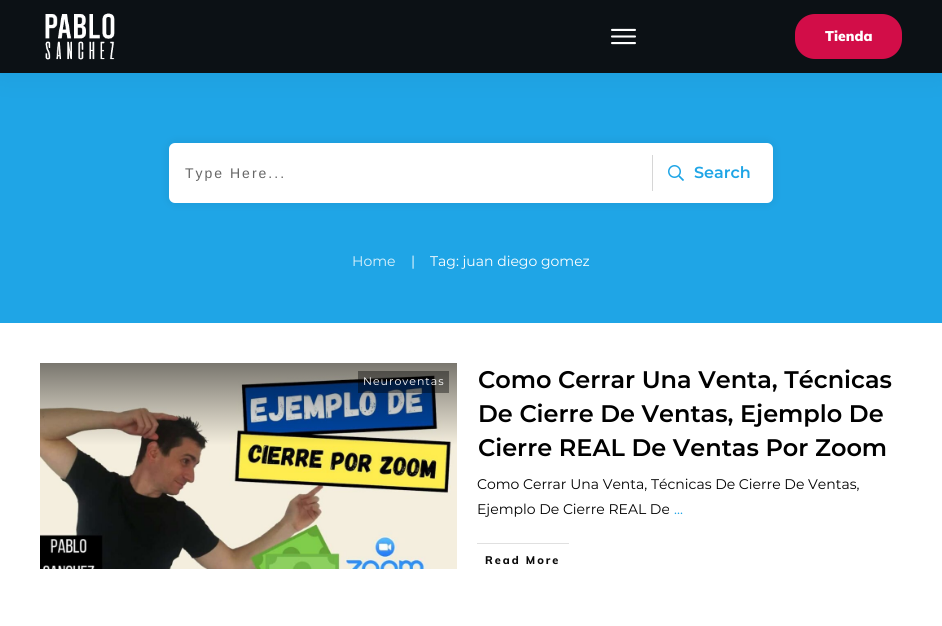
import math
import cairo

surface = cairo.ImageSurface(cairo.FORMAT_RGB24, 942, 626)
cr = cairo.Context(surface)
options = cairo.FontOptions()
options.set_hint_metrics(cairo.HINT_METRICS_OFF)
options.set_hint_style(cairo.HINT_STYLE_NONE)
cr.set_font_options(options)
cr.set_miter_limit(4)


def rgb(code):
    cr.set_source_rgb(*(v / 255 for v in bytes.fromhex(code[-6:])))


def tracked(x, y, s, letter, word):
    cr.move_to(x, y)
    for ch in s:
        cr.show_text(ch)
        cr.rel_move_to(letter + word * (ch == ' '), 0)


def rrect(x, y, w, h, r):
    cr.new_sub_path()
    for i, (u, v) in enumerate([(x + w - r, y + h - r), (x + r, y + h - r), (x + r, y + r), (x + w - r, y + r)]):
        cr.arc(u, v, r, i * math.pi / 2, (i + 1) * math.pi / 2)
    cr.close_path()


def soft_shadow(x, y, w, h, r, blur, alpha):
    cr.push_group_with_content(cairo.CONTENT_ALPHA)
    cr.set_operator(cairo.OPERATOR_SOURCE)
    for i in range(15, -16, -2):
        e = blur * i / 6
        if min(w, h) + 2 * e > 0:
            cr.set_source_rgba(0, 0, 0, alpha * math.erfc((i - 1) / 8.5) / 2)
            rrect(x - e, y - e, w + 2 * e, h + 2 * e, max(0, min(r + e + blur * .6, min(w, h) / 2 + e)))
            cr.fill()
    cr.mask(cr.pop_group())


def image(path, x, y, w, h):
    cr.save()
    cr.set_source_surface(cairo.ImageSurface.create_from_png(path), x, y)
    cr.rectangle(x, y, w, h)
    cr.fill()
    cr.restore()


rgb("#ffffff")
cr.paint()
rgb("#1fa5e6")
cr.rectangle(0, 73, 942, 250)
cr.fill()
rgb("#000000")
soft_shadow(0, 2, 942, 73, 0, 15, 0.05)
rgb("#0c1115")
cr.rectangle(0, 0, 942, 73)
cr.fill()
image("img/1.png", 45, 13, 70, 47)
image("img/2.png", 611, 28, 25, 17)
rgb("#d20d48")
rrect(795, 14, 107, 45, 20)
cr.fill()
rgb("#000000")
soft_shadow(169, 143, 604, 60, 6, 5.5, 0.08)
rgb("#ffffff")
rrect(169, 143, 604, 60, 6)
cr.fill()
rgb("#d6d6d6")
cr.rectangle(652, 155, 1, 36)
cr.fill()
image("img/3.png", 668, 165, 16, 16)
image("img/4.png", 40, 363, 417, 206)
cr.set_source_rgba(0, 0, 0, 0.4)
cr.rectangle(358, 371, 91, 22)
cr.fill()
rgb("#e0e0e0")
cr.rectangle(477, 543, 92, 1)
cr.fill()
cr.select_font_face("Muli Black")
cr.set_font_size(14)
rgb("#ffffff")
cr.move_to(825, 41)
cr.show_text("Tienda")
cr.select_font_face("Liberation Sans")
rgb("#666666")
tracked(185, 178, "Type Here...", 2, 0)
cr.select_font_face("Montserrat SemiBold")
cr.set_font_size(16)
rgb("#1fa5e6")
cr.move_to(694, 178)
cr.show_text("Search")
cr.select_font_face("Montserrat")
cr.set_font_size(14)
rgb("#ddf2fb")
cr.move_to(352, 266)
cr.show_text("Home")
rgb("#ffffff")
cr.move_to(411, 266)
cr.show_text("|")
cr.move_to(430, 266)
cr.show_text("Tag: juan diego gomez")
cr.set_font_size(11)
tracked(363, 385, "Neuroventas", 1, 0)
cr.select_font_face("Montserrat SemiBold")
cr.set_font_size(24)
rgb("#000000")
for x, y, s in [
    (478, 388, "Como Cerrar Una Venta, Técnicas"),
    (478, 422, "De Cierre De Ventas, Ejemplo De"),
    (478, 456, "Cierre REAL De Ventas Por Zoom"),
]:
    cr.move_to(x, y)
    cr.show_text(s)
cr.select_font_face("Montserrat")
cr.set_font_size(14)
cr.move_to(477, 489)
cr.show_text("Como Cerrar Una Venta, Técnicas De Cierre De Ventas,")
cr.move_to(477, 514)
cr.show_text("Ejemplo De Cierre REAL De")
rgb("#1fa5e6")
cr.move_to(674, 514)
cr.show_text("...")
cr.select_font_face("Muli ExtraBold")
cr.set_font_size(11)
rgb("#0a0a0a")
tracked(485, 564, "Read More", 2, 0)
surface.write_to_png("page.png")
